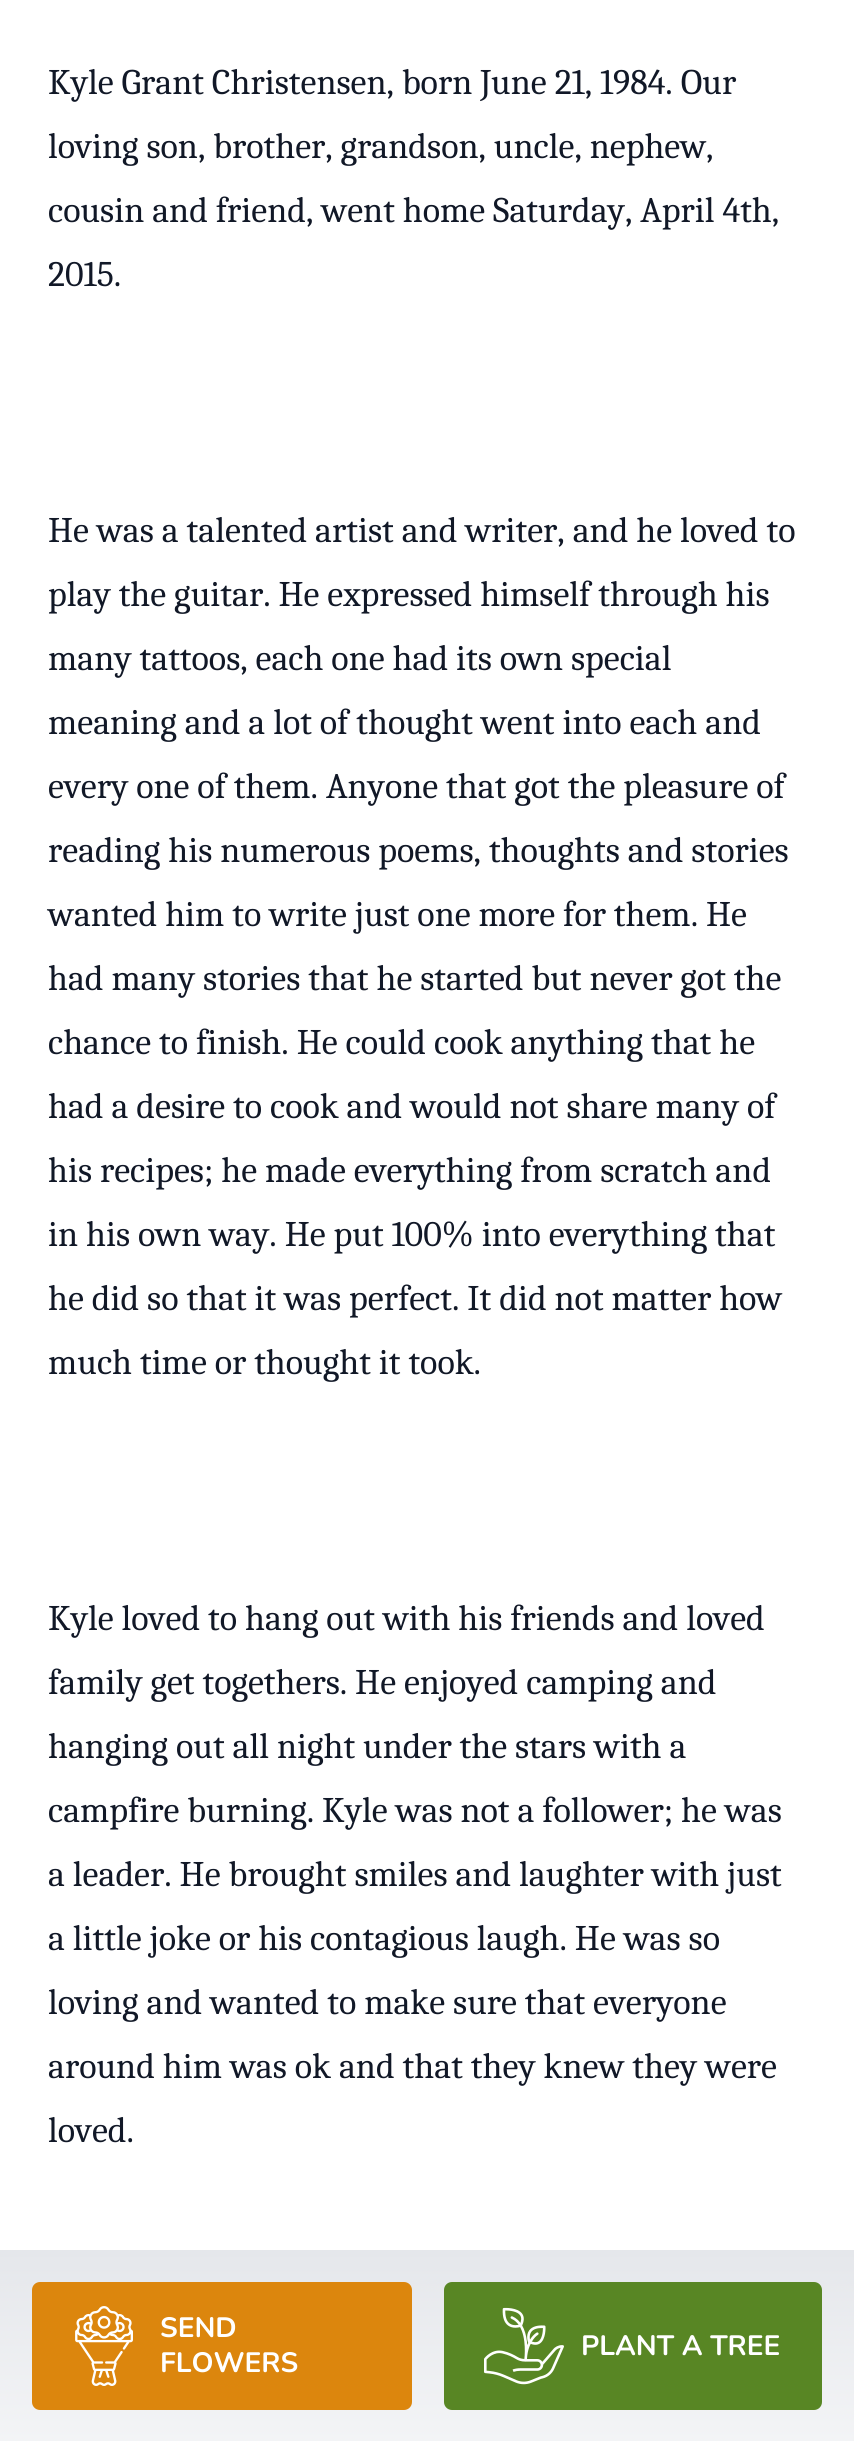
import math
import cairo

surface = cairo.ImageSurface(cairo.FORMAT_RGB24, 854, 2441)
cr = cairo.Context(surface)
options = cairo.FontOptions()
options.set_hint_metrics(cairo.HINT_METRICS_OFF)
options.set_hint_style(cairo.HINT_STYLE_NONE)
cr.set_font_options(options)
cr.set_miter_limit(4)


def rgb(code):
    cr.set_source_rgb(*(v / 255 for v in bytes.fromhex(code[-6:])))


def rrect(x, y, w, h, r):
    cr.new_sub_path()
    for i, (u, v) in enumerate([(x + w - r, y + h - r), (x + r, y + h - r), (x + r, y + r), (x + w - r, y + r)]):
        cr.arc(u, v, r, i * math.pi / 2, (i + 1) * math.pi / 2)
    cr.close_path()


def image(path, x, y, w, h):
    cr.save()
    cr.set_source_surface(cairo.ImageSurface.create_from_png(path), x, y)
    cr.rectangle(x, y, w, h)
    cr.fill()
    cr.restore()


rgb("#ffffff")
cr.paint()
gradient = cairo.LinearGradient(427, 2250, 427, 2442)
gradient.add_color_stop_rgba(0, 0.898, 0.906, 0.922, 1)
gradient.add_color_stop_rgba(1, 0.953, 0.957, 0.965, 1)
cr.set_source(gradient)
cr.rectangle(0, 2250, 854, 191)
cr.fill()
rgb("#dc860d")
rrect(32, 2282, 380, 128, 8)
cr.fill()
image("img/1.png", 75, 2306, 58, 80)
rgb("#588624")
rrect(444, 2282, 378, 128, 8)
cr.fill()
image("img/2.png", 484, 2307, 80, 78)
cr.select_font_face("Caladea")
cr.set_font_size(36)
rgb("#111827")
for x, y, s in [
    (48, 94, "Kyle Grant Christensen, born June 21, 1984. Our"),
    (48, 158, "loving son, brother, grandson, uncle, nephew,"),
    (48, 222, "cousin and friend, went home Saturday, April 4th,"),
    (48, 286, "2015."),
    (48, 542, "He was a talented artist and writer, and he loved to"),
    (48, 606, "play the guitar. He expressed himself through his"),
    (48, 670, "many tattoos, each one had its own special"),
    (48, 734, "meaning and a lot of thought went into each and"),
    (48, 798, "every one of them. Anyone that got the pleasure of"),
    (48, 862, "reading his numerous poems, thoughts and stories"),
    (48, 926, "wanted him to write just one more for them. He"),
    (48, 990, "had many stories that he started but never got the"),
    (48, 1054, "chance to finish. He could cook anything that he"),
    (48, 1118, "had a desire to cook and would not share many of"),
    (48, 1182, "his recipes; he made everything from scratch and"),
    (48, 1246, "in his own way. He put 100% into everything that"),
    (48, 1310, "he did so that it was perfect. It did not matter how"),
    (48, 1374, "much time or thought it took."),
    (48, 1630, "Kyle loved to hang out with his friends and loved"),
    (48, 1694, "family get togethers. He enjoyed camping and"),
    (48, 1758, "hanging out all night under the stars with a"),
    (48, 1822, "campfire burning. Kyle was not a follower; he was"),
    (48, 1886, "a leader. He brought smiles and laughter with just"),
    (48, 1950, "a little joke or his contagious laugh. He was so"),
    (48, 2014, "loving and wanted to make sure that everyone"),
    (48, 2078, "around him was ok and that they knew they were"),
    (48, 2142, "loved."),
]:
    cr.move_to(x, y)
    cr.show_text(s)
cr.select_font_face("Nunito", cairo.FONT_SLANT_NORMAL, cairo.FONT_WEIGHT_BOLD)
cr.set_font_size(28)
rgb("#ffffff")
for x, y, s in [
    (160, 2337, "SEND"),
    (160, 2372, "FLOWERS"),
    (581, 2355, "PLANT A TREE"),
]:
    cr.move_to(x, y)
    cr.show_text(s)
surface.write_to_png("page.png")
